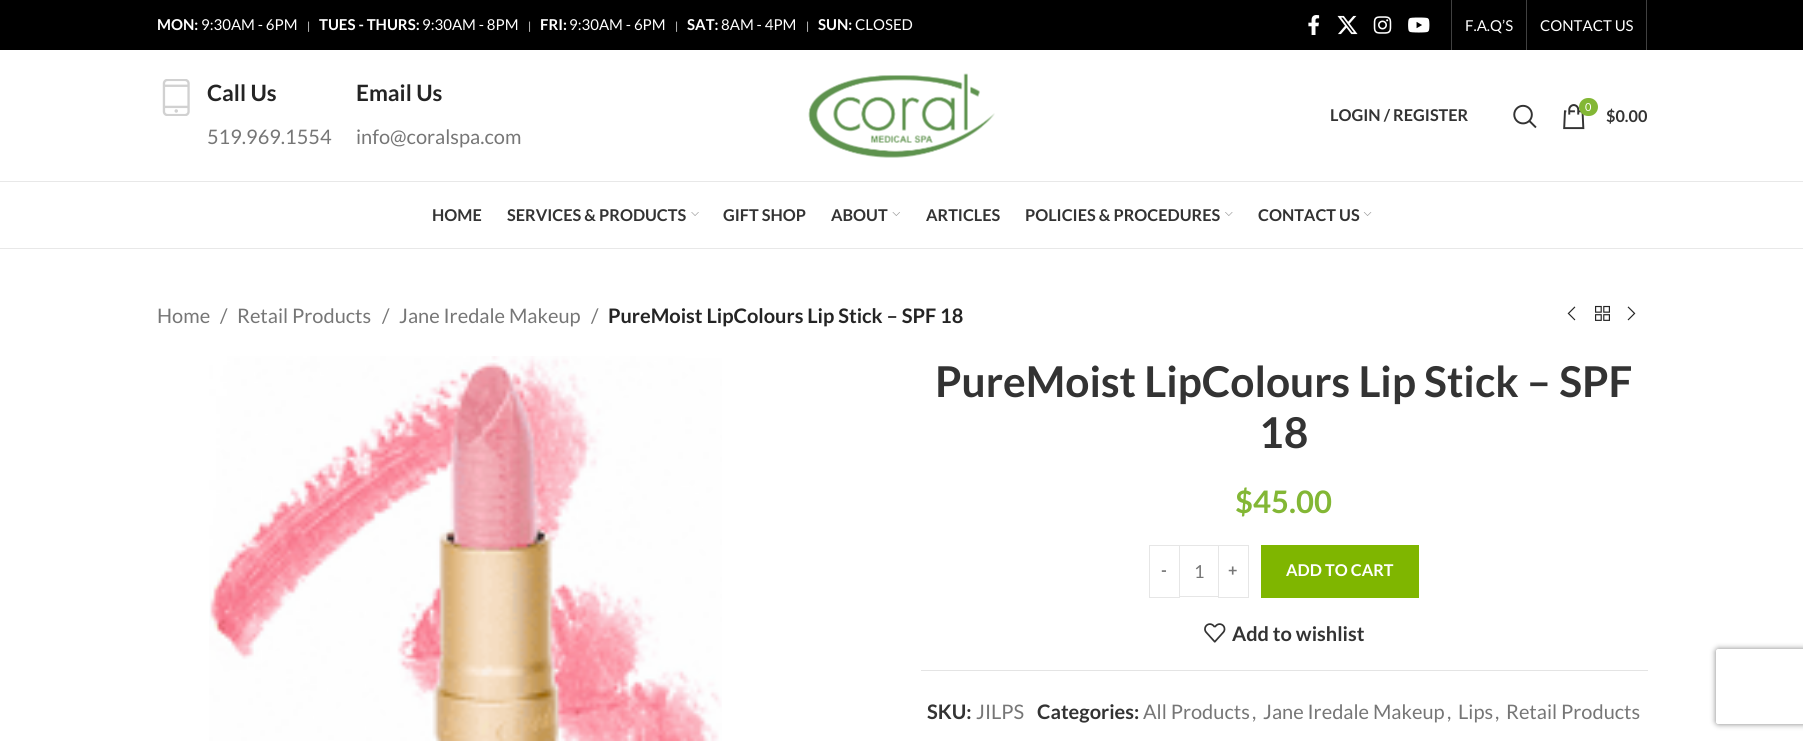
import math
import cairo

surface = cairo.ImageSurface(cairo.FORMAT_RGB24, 1803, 741)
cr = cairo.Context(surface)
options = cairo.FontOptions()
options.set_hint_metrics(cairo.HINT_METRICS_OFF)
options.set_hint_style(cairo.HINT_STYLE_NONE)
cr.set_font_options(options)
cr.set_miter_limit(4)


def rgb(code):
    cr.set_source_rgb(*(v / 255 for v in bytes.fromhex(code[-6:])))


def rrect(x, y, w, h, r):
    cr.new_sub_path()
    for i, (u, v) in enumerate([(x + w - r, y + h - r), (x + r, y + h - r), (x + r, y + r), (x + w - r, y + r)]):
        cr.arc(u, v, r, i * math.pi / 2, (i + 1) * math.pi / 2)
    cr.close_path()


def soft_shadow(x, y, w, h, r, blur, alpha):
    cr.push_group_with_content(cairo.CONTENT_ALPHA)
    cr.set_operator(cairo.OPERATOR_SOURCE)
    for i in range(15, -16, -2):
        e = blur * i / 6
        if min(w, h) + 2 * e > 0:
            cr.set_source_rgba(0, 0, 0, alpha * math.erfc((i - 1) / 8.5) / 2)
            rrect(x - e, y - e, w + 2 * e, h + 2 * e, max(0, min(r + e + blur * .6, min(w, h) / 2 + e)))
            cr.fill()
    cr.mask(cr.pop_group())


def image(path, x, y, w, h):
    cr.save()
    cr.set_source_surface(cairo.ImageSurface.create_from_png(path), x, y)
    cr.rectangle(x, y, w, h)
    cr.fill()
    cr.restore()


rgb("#ffffff")
cr.paint()
rgb("#000000")
cr.rectangle(0, 0, 1803, 50)
cr.fill()
image("img/1.png", 1308, 15, 12, 20)
image("img/2.png", 1337, 15, 21, 20)
image("img/3.png", 1373, 16, 19, 18)
image("img/4.png", 1408, 17, 22, 16)
for x, y, w, h, color in [
    (1451, 0, 1, 50, "#404040"),
    (1526, 0, 1, 50, "#404040"),
    (1646, 0, 1, 50, "#404040"),
    (0, 181, 1803, 1, "#e8e8e8"),
]:
    rgb(color)
    cr.rectangle(x, y, w, h)
    cr.fill()
image("img/5.png", 162, 79, 28, 37)
image("img/6.png", 808, 73, 187, 85)
image("img/7.png", 1513, 104, 24, 25)
image("img/8.png", 1563, 104, 22, 26)
rgb("#83b735")
rrect(1579, 98, 19, 18, 9)
cr.fill()
rgb("#e8e8e8")
cr.rectangle(0, 248, 1803, 1)
cr.fill()
image("img/9.png", 691, 212, 8, 4)
image("img/10.png", 892, 212, 8, 4)
image("img/11.png", 1225, 212, 8, 4)
image("img/12.png", 1363, 212, 9, 4)
image("img/13.png", 1567, 306, 9, 15)
image("img/14.png", 1595, 305, 15, 16)
image("img/15.png", 1627, 306, 9, 15)
image("img/16.png", 209, 356, 513, 385)
cr.rectangle(1149.5, 545.5, 30, 52)
rgb("#e6e6e6")
cr.set_line_width(1)
cr.stroke()
cr.rectangle(1180, 545, 38, 1)
cr.fill()
cr.rectangle(1180, 596, 38, 1)
cr.fill()
cr.rectangle(1218.5, 545.5, 30, 52)
cr.stroke()
rgb("#7fb600")
cr.rectangle(1261, 545, 158, 53)
cr.fill()
image("img/17.png", 1204, 623, 22, 20)
rgb("#e4e4e4")
cr.rectangle(921, 670, 727, 1)
cr.fill()
cr.save()
cr.set_fill_rule(cairo.FILL_RULE_EVEN_ODD)
cr.new_path()
cr.move_to(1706, 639)
cr.line_to(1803, 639)
cr.line_to(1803, 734)
cr.line_to(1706, 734)
cr.close_path()
cr.move_to(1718.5, 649)
cr.line_to(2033.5, 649)
cr.curve_to(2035, 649, 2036, 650, 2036, 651.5)
cr.line_to(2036, 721.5)
cr.curve_to(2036, 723, 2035, 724, 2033.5, 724)
cr.line_to(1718.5, 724)
cr.curve_to(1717, 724, 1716, 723, 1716, 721.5)
cr.line_to(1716, 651.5)
cr.curve_to(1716, 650, 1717, 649, 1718.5, 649)
cr.close_path()
cr.clip()
rgb("#808080")
soft_shadow(1716, 649, 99, 75, 2.5, 3, 1)
cr.restore()
cr.select_font_face("Lato", cairo.FONT_SLANT_NORMAL, cairo.FONT_WEIGHT_BOLD)
cr.set_font_size(15)
rgb("#ffffff")
cr.move_to(157, 30)
cr.show_text("MON:")
cr.select_font_face("Lato")
cr.move_to(201, 30)
cr.show_text("9:30AM - 6PM")
cr.set_font_size(11)
rgb("#eaeaea")
cr.move_to(307, 30)
cr.show_text("|")
cr.select_font_face("Lato", cairo.FONT_SLANT_NORMAL, cairo.FONT_WEIGHT_BOLD)
cr.set_font_size(15)
rgb("#ffffff")
cr.move_to(319, 30)
cr.show_text("TUES - THURS:")
cr.select_font_face("Lato")
cr.move_to(422, 30)
cr.show_text("9:30AM - 8PM")
cr.set_font_size(11)
rgb("#eaeaea")
cr.move_to(528, 30)
cr.show_text("|")
cr.select_font_face("Lato", cairo.FONT_SLANT_NORMAL, cairo.FONT_WEIGHT_BOLD)
cr.set_font_size(15)
rgb("#ffffff")
cr.move_to(540, 30)
cr.show_text("FRI:")
cr.select_font_face("Lato")
cr.move_to(569, 30)
cr.show_text("9:30AM - 6PM")
cr.set_font_size(11)
rgb("#eaeaea")
cr.move_to(675, 30)
cr.show_text("|")
cr.select_font_face("Lato", cairo.FONT_SLANT_NORMAL, cairo.FONT_WEIGHT_BOLD)
cr.set_font_size(15)
rgb("#ffffff")
cr.move_to(687, 30)
cr.show_text("SAT:")
cr.select_font_face("Lato")
cr.move_to(721, 30)
cr.show_text("8AM - 4PM")
cr.set_font_size(11)
rgb("#eaeaea")
cr.move_to(806, 30)
cr.show_text("|")
cr.select_font_face("Lato", cairo.FONT_SLANT_NORMAL, cairo.FONT_WEIGHT_BOLD)
cr.set_font_size(15)
rgb("#ffffff")
cr.move_to(818, 30)
cr.show_text("SUN:")
cr.select_font_face("Lato")
for x, y, s in [
    (855, 30, "CLOSED"),
    (1465, 31, "F.A.Q’S"),
    (1540, 31, "CONTACT US"),
]:
    cr.move_to(x, y)
    cr.show_text(s)
cr.select_font_face("Lato", cairo.FONT_SLANT_NORMAL, cairo.FONT_WEIGHT_BOLD)
cr.set_font_size(22.5)
rgb("#242424")
cr.move_to(207, 101)
cr.show_text("Call Us")
cr.select_font_face("Lato")
cr.set_font_size(20)
rgb("#767676")
cr.move_to(207, 144)
cr.show_text("519.969.1554")
cr.select_font_face("Lato", cairo.FONT_SLANT_NORMAL, cairo.FONT_WEIGHT_BOLD)
cr.set_font_size(22.5)
rgb("#242424")
cr.move_to(356, 101)
cr.show_text("Email Us")
cr.select_font_face("Lato")
cr.set_font_size(20)
rgb("#767676")
cr.move_to(356, 144)
cr.show_text("info@coralspa.com")
cr.select_font_face("Lato", cairo.FONT_SLANT_NORMAL, cairo.FONT_WEIGHT_BOLD)
cr.set_font_size(16.25)
rgb("#333333")
cr.move_to(1330, 121)
cr.show_text("LOGIN / REGISTER")
cr.select_font_face("Lato")
cr.set_font_size(11)
rgb("#ffffff")
cr.move_to(1585, 111)
cr.show_text("0")
cr.select_font_face("Lato", cairo.FONT_SLANT_NORMAL, cairo.FONT_WEIGHT_BOLD)
cr.set_font_size(16.25)
rgb("#333333")
for x, y, s in [
    (1606, 122, "$0.00"),
    (432, 221, "HOME"),
    (507, 221, "SERVICES & PRODUCTS"),
    (723, 221, "GIFT SHOP"),
    (831, 221, "ABOUT"),
    (926, 221, "ARTICLES"),
    (1025, 221, "POLICIES & PROCEDURES"),
    (1258, 221, "CONTACT US"),
]:
    cr.move_to(x, y)
    cr.show_text(s)
cr.select_font_face("Lato")
cr.set_font_size(20)
rgb("#767676")
for x, y, s in [
    (157, 323, "Home"),
    (220, 323, "/"),
    (237, 323, "Retail Products"),
    (382, 323, "/"),
    (399, 323, "Jane Iredale Makeup"),
    (591, 323, "/"),
]:
    cr.move_to(x, y)
    cr.show_text(s)
cr.select_font_face("Lato", cairo.FONT_SLANT_NORMAL, cairo.FONT_WEIGHT_BOLD)
rgb("#242424")
cr.move_to(608, 323)
cr.show_text("PureMoist LipColours Lip Stick – SPF 18")
cr.set_font_size(42.5)
rgb("#333333")
cr.move_to(935, 397)
cr.show_text("PureMoist LipColours Lip Stick – SPF")
cr.move_to(1259, 448)
cr.show_text("18")
cr.set_font_size(31)
rgb("#83b735")
cr.move_to(1235, 513)
cr.show_text("$45.00")
cr.set_font_size(16.25)
rgb("#767676")
cr.move_to(1161, 576)
cr.show_text("-")
cr.select_font_face("Lato")
cr.set_font_size(18)
cr.move_to(1194, 578)
cr.show_text("1")
cr.select_font_face("Lato", cairo.FONT_SLANT_NORMAL, cairo.FONT_WEIGHT_BOLD)
cr.set_font_size(16.25)
cr.move_to(1228, 576)
cr.show_text("+")
rgb("#ffffff")
cr.move_to(1286, 576)
cr.show_text("ADD TO CART")
cr.set_font_size(20)
rgb("#333333")
cr.move_to(1232, 641)
cr.show_text("Add to wishlist")
cr.move_to(927, 719)
cr.show_text("SKU:")
cr.select_font_face("Lato")
rgb("#767676")
cr.move_to(976, 719)
cr.show_text("JILPS")
cr.select_font_face("Lato", cairo.FONT_SLANT_NORMAL, cairo.FONT_WEIGHT_BOLD)
rgb("#333333")
cr.move_to(1037, 719)
cr.show_text("Categories:")
cr.select_font_face("Lato")
rgb("#767676")
for x, y, s in [
    (1143, 719, "All Products"),
    (1252, 719, ","),
    (1263, 719, "Jane Iredale Makeup"),
    (1447, 719, ","),
    (1458, 719, "Lips"),
    (1495, 719, ","),
    (1506, 719, "Retail Products"),
]:
    cr.move_to(x, y)
    cr.show_text(s)
surface.write_to_png("page.png")
